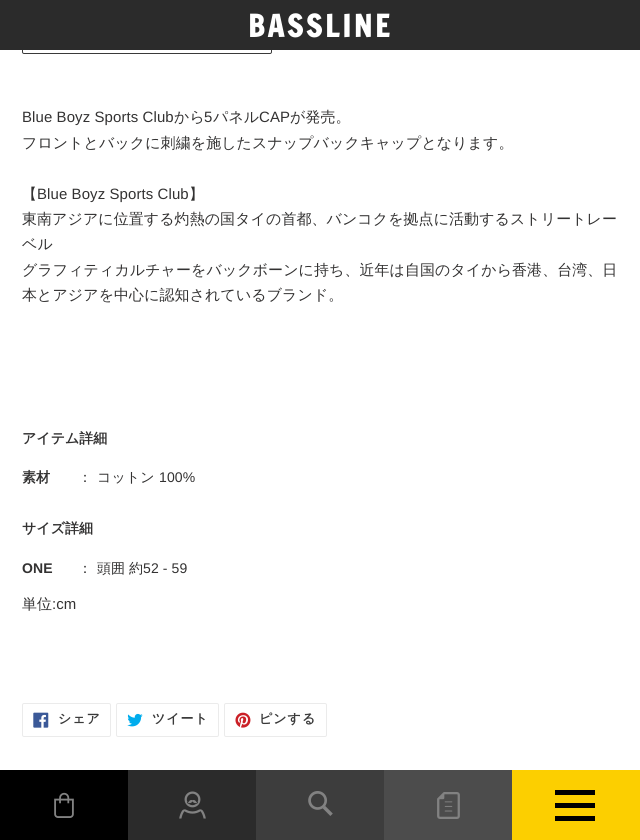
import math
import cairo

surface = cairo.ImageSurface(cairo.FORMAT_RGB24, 640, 840)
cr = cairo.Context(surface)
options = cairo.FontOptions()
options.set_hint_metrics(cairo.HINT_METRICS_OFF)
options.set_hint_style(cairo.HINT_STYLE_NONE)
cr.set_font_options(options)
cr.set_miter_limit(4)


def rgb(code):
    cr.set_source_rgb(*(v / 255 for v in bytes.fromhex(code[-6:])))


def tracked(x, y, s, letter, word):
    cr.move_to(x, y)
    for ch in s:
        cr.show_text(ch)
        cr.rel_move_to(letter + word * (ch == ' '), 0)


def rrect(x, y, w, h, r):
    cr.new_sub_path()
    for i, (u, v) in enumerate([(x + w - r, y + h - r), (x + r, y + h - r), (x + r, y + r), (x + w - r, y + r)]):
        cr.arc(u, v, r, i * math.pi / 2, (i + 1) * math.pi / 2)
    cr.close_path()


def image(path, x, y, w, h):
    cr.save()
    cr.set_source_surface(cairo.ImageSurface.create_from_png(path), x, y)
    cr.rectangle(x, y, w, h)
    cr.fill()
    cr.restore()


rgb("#ffffff")
cr.paint()
rrect(22.5, 10.5, 249, 43, 1.5)
rgb("#3a3a3a")
cr.set_line_width(1)
cr.stroke()
for x, y, w, h, color in [
    (0, 0, 640, 50, "#2b2b2b"),
    (128, 770, 128, 70, "#2b2b2b"),
    (0, 770, 128, 70, "#000000"),
]:
    rgb(color)
    cr.rectangle(x, y, w, h)
    cr.fill()
image("img/1.png", 54, 792, 20, 26)
image("img/2.png", 179, 791, 27, 28)
rgb("#3d3d3d")
cr.rectangle(256, 770, 128, 70)
cr.fill()
image("img/3.png", 308, 791, 25, 25)
rgb("#4c4c4c")
cr.rectangle(384, 770, 128, 70)
cr.fill()
image("img/4.png", 437, 792, 23, 27)
for x, y, w, h, color in [
    (512, 770, 128, 70, "#fccf00"),
    (555, 790, 40, 5, "#000000"),
    (555, 803, 40, 5, "#000000"),
    (555, 816, 40, 5, "#000000"),
]:
    rgb(color)
    cr.rectangle(x, y, w, h)
    cr.fill()
rrect(22.5, 703.5, 88, 33, 1.5)
rgb("#ebebeb")
cr.stroke()
image("img/5.png", 33, 712, 16, 16)
rrect(116.5, 703.5, 102, 33, 1.5)
cr.stroke()
image("img/6.png", 127, 713, 16, 14)
rrect(224.5, 703.5, 102, 33, 1.5)
cr.stroke()
image("img/7.png", 235, 712, 16, 16)
cr.select_font_face("Francois One", cairo.FONT_SLANT_NORMAL, cairo.FONT_WEIGHT_BOLD)
cr.set_font_size(30)
rgb("#ffffff")
tracked(248, 37, "BASSLINE", 3, 0)
cr.select_font_face("Liberation Sans")
cr.set_font_size(14.95)
rgb("#333232")
tracked(22, 122, "Blue Boyz Sports Club", 0.1, 0)
cr.select_font_face("WenQuanYi Zen Hei Medium")
tracked(174, 122, "から", 0.1, 0)
cr.select_font_face("Liberation Sans")
tracked(204, 122, "5", 0.1, 0)
cr.select_font_face("WenQuanYi Zen Hei Medium")
tracked(213, 122, "パネル", 0.1, 0)
cr.select_font_face("Liberation Sans")
tracked(259, 122, "CAP", 0.1, 0)
cr.select_font_face("WenQuanYi Zen Hei Medium")
for x, y, s in [
    (290, 122, "が発売。"),
    (22, 148, "フロントとバックに刺繍を施したスナップバックキャップとなります。"),
    (22, 199, "【"),
]:
    tracked(x, y, s, 0.1, 0)
cr.select_font_face("Liberation Sans")
tracked(37, 199, "Blue Boyz Sports Club", 0.1, 0)
cr.select_font_face("WenQuanYi Zen Hei Medium")
for x, y, s in [
    (189, 199, "】"),
    (22, 224, "東南アジアに位置する灼熱の国タイの首都、バンコクを拠点に活動するストリートレー"),
    (22, 249, "ベル"),
    (22, 275, "グラフィティカルチャーをバックボーンに持ち、近年は自国のタイから香港、台湾、日"),
    (22, 300, "本とアジアを中心に認知されているブランド。"),
]:
    tracked(x, y, s, 0.1, 0)
cr.select_font_face("WenQuanYi Zen Hei", cairo.FONT_SLANT_NORMAL, cairo.FONT_WEIGHT_BOLD)
cr.set_font_size(14)
cr.move_to(22, 443)
cr.show_text("アイテム詳細")
tracked(22, 482, "素材", 0.1, 0)
cr.select_font_face("WenQuanYi Zen Hei Medium")
tracked(78, 482, "：", 0.1, 0)
tracked(97, 482, "コットン", 0.1, 0)
cr.select_font_face("Liberation Sans")
tracked(159, 482, "100%", 0.1, 0)
cr.select_font_face("WenQuanYi Zen Hei", cairo.FONT_SLANT_NORMAL, cairo.FONT_WEIGHT_BOLD)
cr.move_to(22, 533)
cr.show_text("サイズ詳細")
cr.select_font_face("Liberation Sans", cairo.FONT_SLANT_NORMAL, cairo.FONT_WEIGHT_BOLD)
tracked(22, 573, "ONE", 0.1, 0)
cr.select_font_face("WenQuanYi Zen Hei Medium")
for x, y, s in [
    (78, 573, "："),
    (97, 573, "頭囲"),
    (129, 573, "約"),
]:
    tracked(x, y, s, 0.1, 0)
cr.select_font_face("Liberation Sans")
tracked(143, 573, "52 - 59", 0.1, 0)
cr.select_font_face("WenQuanYi Zen Hei Medium")
cr.set_font_size(14.95)
tracked(22, 609, "単位", 0.1, 0)
cr.select_font_face("Liberation Sans")
tracked(52, 609, ":cm", 0.1, 0)
cr.select_font_face("WenQuanYi Zen Hei", cairo.FONT_SLANT_NORMAL, cairo.FONT_WEIGHT_BOLD)
cr.set_font_size(13)
rgb("#3a3a3a")
for x, y, s in [
    (58, 723, "シェア"),
    (152, 723, "ツイート"),
    (259, 723, "ピンする"),
]:
    tracked(x, y, s, 1, 0)
surface.write_to_png("page.png")
